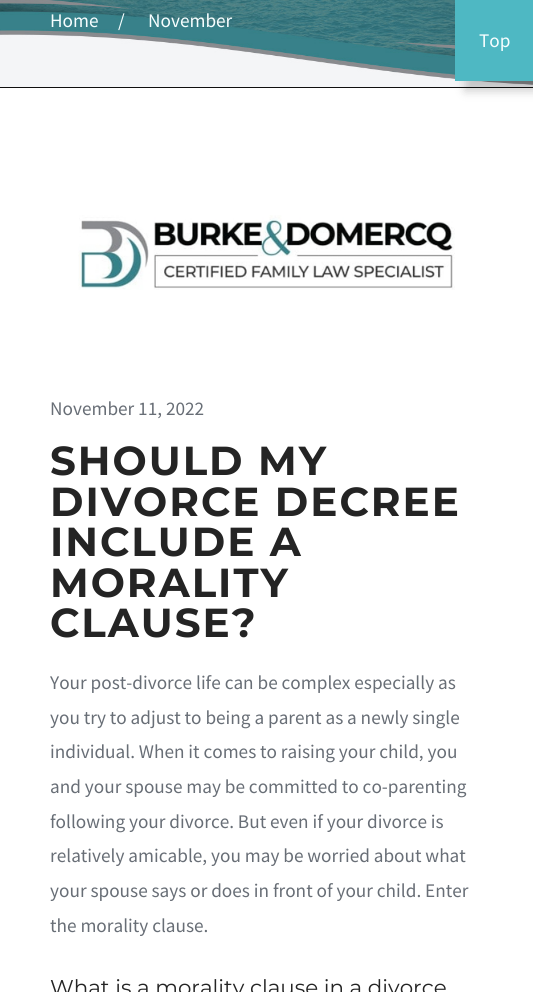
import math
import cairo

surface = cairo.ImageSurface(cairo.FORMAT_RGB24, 533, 992)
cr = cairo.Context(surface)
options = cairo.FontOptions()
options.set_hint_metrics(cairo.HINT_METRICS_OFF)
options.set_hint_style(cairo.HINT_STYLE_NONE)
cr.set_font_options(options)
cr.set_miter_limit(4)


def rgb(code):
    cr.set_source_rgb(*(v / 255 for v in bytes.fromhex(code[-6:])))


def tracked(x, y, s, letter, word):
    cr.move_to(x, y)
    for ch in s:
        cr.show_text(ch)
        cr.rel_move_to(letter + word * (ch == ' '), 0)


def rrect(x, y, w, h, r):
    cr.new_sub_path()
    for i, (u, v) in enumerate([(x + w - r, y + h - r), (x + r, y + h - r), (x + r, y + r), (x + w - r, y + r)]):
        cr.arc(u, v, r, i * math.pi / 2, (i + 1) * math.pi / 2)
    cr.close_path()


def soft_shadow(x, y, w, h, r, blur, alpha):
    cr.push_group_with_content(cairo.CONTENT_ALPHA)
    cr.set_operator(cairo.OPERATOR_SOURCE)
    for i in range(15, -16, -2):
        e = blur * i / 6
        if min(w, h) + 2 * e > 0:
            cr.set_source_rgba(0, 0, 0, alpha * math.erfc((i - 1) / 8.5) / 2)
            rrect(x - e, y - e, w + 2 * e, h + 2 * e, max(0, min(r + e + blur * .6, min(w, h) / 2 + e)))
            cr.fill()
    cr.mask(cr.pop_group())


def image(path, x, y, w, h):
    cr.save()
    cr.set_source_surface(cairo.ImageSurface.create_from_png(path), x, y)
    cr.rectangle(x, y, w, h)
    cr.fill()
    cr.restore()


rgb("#ffffff")
cr.paint()
rgb("#000000")
cr.rectangle(0, 87, 533, 1)
cr.fill()
image("img/1.png", 0, 0, 533, 88)
image("img/2.png", 78, 215, 377, 75)
rgb("#000000")
soft_shadow(465, 10, 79, 81, 0, 5, 0.2)
rgb("#4eb8c3")
cr.rectangle(455, 0, 78, 81)
cr.fill()
cr.select_font_face("Source Sans Pro")
cr.set_font_size(19.25)
rgb("#f7feff")
for x, y, s in [
    (50, 27, "Home"),
    (118, 27, "/"),
    (148, 27, "November"),
]:
    cr.move_to(x, y)
    cr.show_text(s)
rgb("#686e76")
cr.move_to(50, 415)
cr.show_text("November 11, 2022")
cr.select_font_face("Montserrat", cairo.FONT_SLANT_NORMAL, cairo.FONT_WEIGHT_BOLD)
cr.set_font_size(40.5)
rgb("#242424")
for x, y, s in [
    (50, 475, "SHOULD MY"),
    (50, 516, "DIVORCE DECREE"),
    (50, 556, "INCLUDE A"),
    (50, 597, "MORALITY"),
    (50, 637, "CLAUSE?"),
]:
    tracked(x, y, s, 2, 0)
cr.select_font_face("Source Sans Pro")
cr.set_font_size(19.25)
rgb("#686e76")
for x, y, s in [
    (50, 689, "Your post-divorce life can be complex especially as"),
    (50, 724, "you try to adjust to being a parent as a newly single"),
    (50, 758, "individual. When it comes to raising your child, you"),
    (50, 793, "and your spouse may be committed to co-parenting"),
    (50, 828, "following your divorce. But even if your divorce is"),
    (50, 862, "relatively amicable, you may be worried about what"),
    (50, 897, "your spouse says or does in front of your child. Enter"),
    (50, 932, "the morality clause."),
]:
    cr.move_to(x, y)
    cr.show_text(s)
cr.select_font_face("Montserrat")
cr.set_font_size(21.4)
rgb("#242424")
cr.move_to(50, 995)
cr.show_text("What is a morality clause in a divorce")
cr.select_font_face("Source Sans Pro")
cr.set_font_size(19.25)
rgb("#f7feff")
cr.move_to(479, 47)
cr.show_text("Top")
surface.write_to_png("page.png")
